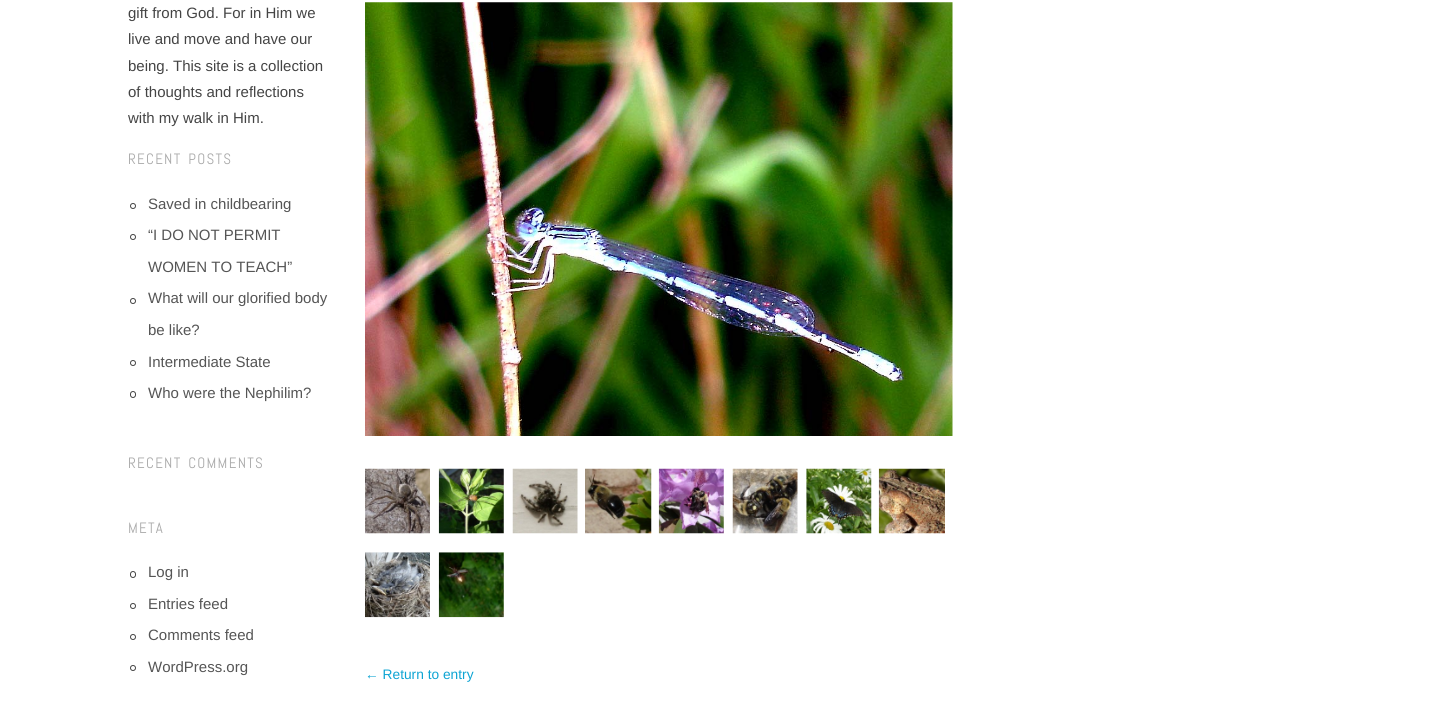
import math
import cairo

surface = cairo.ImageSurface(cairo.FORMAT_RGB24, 1430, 726)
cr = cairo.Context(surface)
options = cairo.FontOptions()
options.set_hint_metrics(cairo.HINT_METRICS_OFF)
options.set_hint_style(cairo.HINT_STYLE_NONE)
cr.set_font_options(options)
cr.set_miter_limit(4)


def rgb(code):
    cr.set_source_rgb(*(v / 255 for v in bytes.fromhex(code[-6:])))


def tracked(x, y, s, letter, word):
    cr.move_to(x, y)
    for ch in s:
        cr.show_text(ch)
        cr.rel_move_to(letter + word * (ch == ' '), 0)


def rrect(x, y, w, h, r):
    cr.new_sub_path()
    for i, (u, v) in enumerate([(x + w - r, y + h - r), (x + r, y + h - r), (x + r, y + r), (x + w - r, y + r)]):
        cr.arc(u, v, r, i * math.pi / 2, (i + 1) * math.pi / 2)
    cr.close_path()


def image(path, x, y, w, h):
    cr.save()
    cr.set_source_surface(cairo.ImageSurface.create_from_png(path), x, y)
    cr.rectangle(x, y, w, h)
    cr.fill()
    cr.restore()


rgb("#ffffff")
cr.paint()
cr.arc(133, 206, 2.5, 0, 2 * math.pi)
rgb("#444444")
cr.set_line_width(1)
cr.stroke()
cr.arc(133, 237, 2.5, 0, 2 * math.pi)
cr.stroke()
cr.arc(133, 301, 2.5, 0, 2 * math.pi)
cr.stroke()
cr.arc(133, 363, 2.5, 0, 2 * math.pi)
cr.stroke()
rrect(130.5, 391.5, 5, 6, 2.5)
cr.stroke()
rrect(130.5, 571.5, 5, 6, 2.5)
cr.stroke()
cr.arc(133, 606, 2.5, 0, 2 * math.pi)
cr.stroke()
cr.arc(133, 637, 2.5, 0, 2 * math.pi)
cr.stroke()
cr.arc(133, 668, 2.5, 0, 2 * math.pi)
cr.stroke()
image("img/1.png", 365, 2, 588, 434)
image("img/2.png", 365, 468, 65, 66)
image("img/3.png", 438, 468, 66, 66)
image("img/4.png", 512, 468, 66, 66)
image("img/5.png", 585, 468, 67, 66)
image("img/6.png", 658, 468, 66, 66)
image("img/7.png", 732, 468, 66, 66)
image("img/8.png", 806, 468, 66, 66)
image("img/9.png", 878, 468, 67, 66)
image("img/10.png", 365, 552, 65, 66)
image("img/11.png", 438, 552, 66, 66)
cr.select_font_face("Liberation Sans")
cr.set_font_size(15)
for x, y, s in [
    (128, 18, "gift from God. For in Him we"),
    (128, 44, "live and move and have our"),
    (128, 71, "being. This site is a collection"),
    (128, 97, "of thoughts and reflections"),
    (128, 123, "with my walk in Him."),
]:
    cr.move_to(x, y)
    cr.show_text(s)
cr.select_font_face("Abel")
rgb("#aaaaaa")
tracked(128, 164, "RECENT POSTS", 1.25, 2)
cr.select_font_face("Liberation Sans")
rgb("#555555")
for x, y, s in [
    (148, 209, "Saved in childbearing"),
    (148, 240, "“I DO NOT PERMIT"),
    (148, 272, "WOMEN TO TEACH”"),
    (148, 303, "What will our glorified body"),
    (148, 335, "be like?"),
    (148, 367, "Intermediate State"),
    (148, 398, "Who were the Nephilim?"),
]:
    cr.move_to(x, y)
    cr.show_text(s)
cr.select_font_face("Abel")
rgb("#aaaaaa")
tracked(128, 468, "RECENT COMMENTS", 1.25, 2)
tracked(128, 533, "META", 1.25, 0)
cr.select_font_face("Liberation Sans")
rgb("#555555")
for x, y, s in [
    (148, 577, "Log in"),
    (148, 609, "Entries feed"),
    (148, 640, "Comments feed"),
    (148, 672, "WordPress.org"),
]:
    cr.move_to(x, y)
    cr.show_text(s)
cr.set_font_size(13.75)
rgb("#0da4d3")
cr.move_to(365, 679)
cr.show_text("← Return to entry")
surface.write_to_png("page.png")
